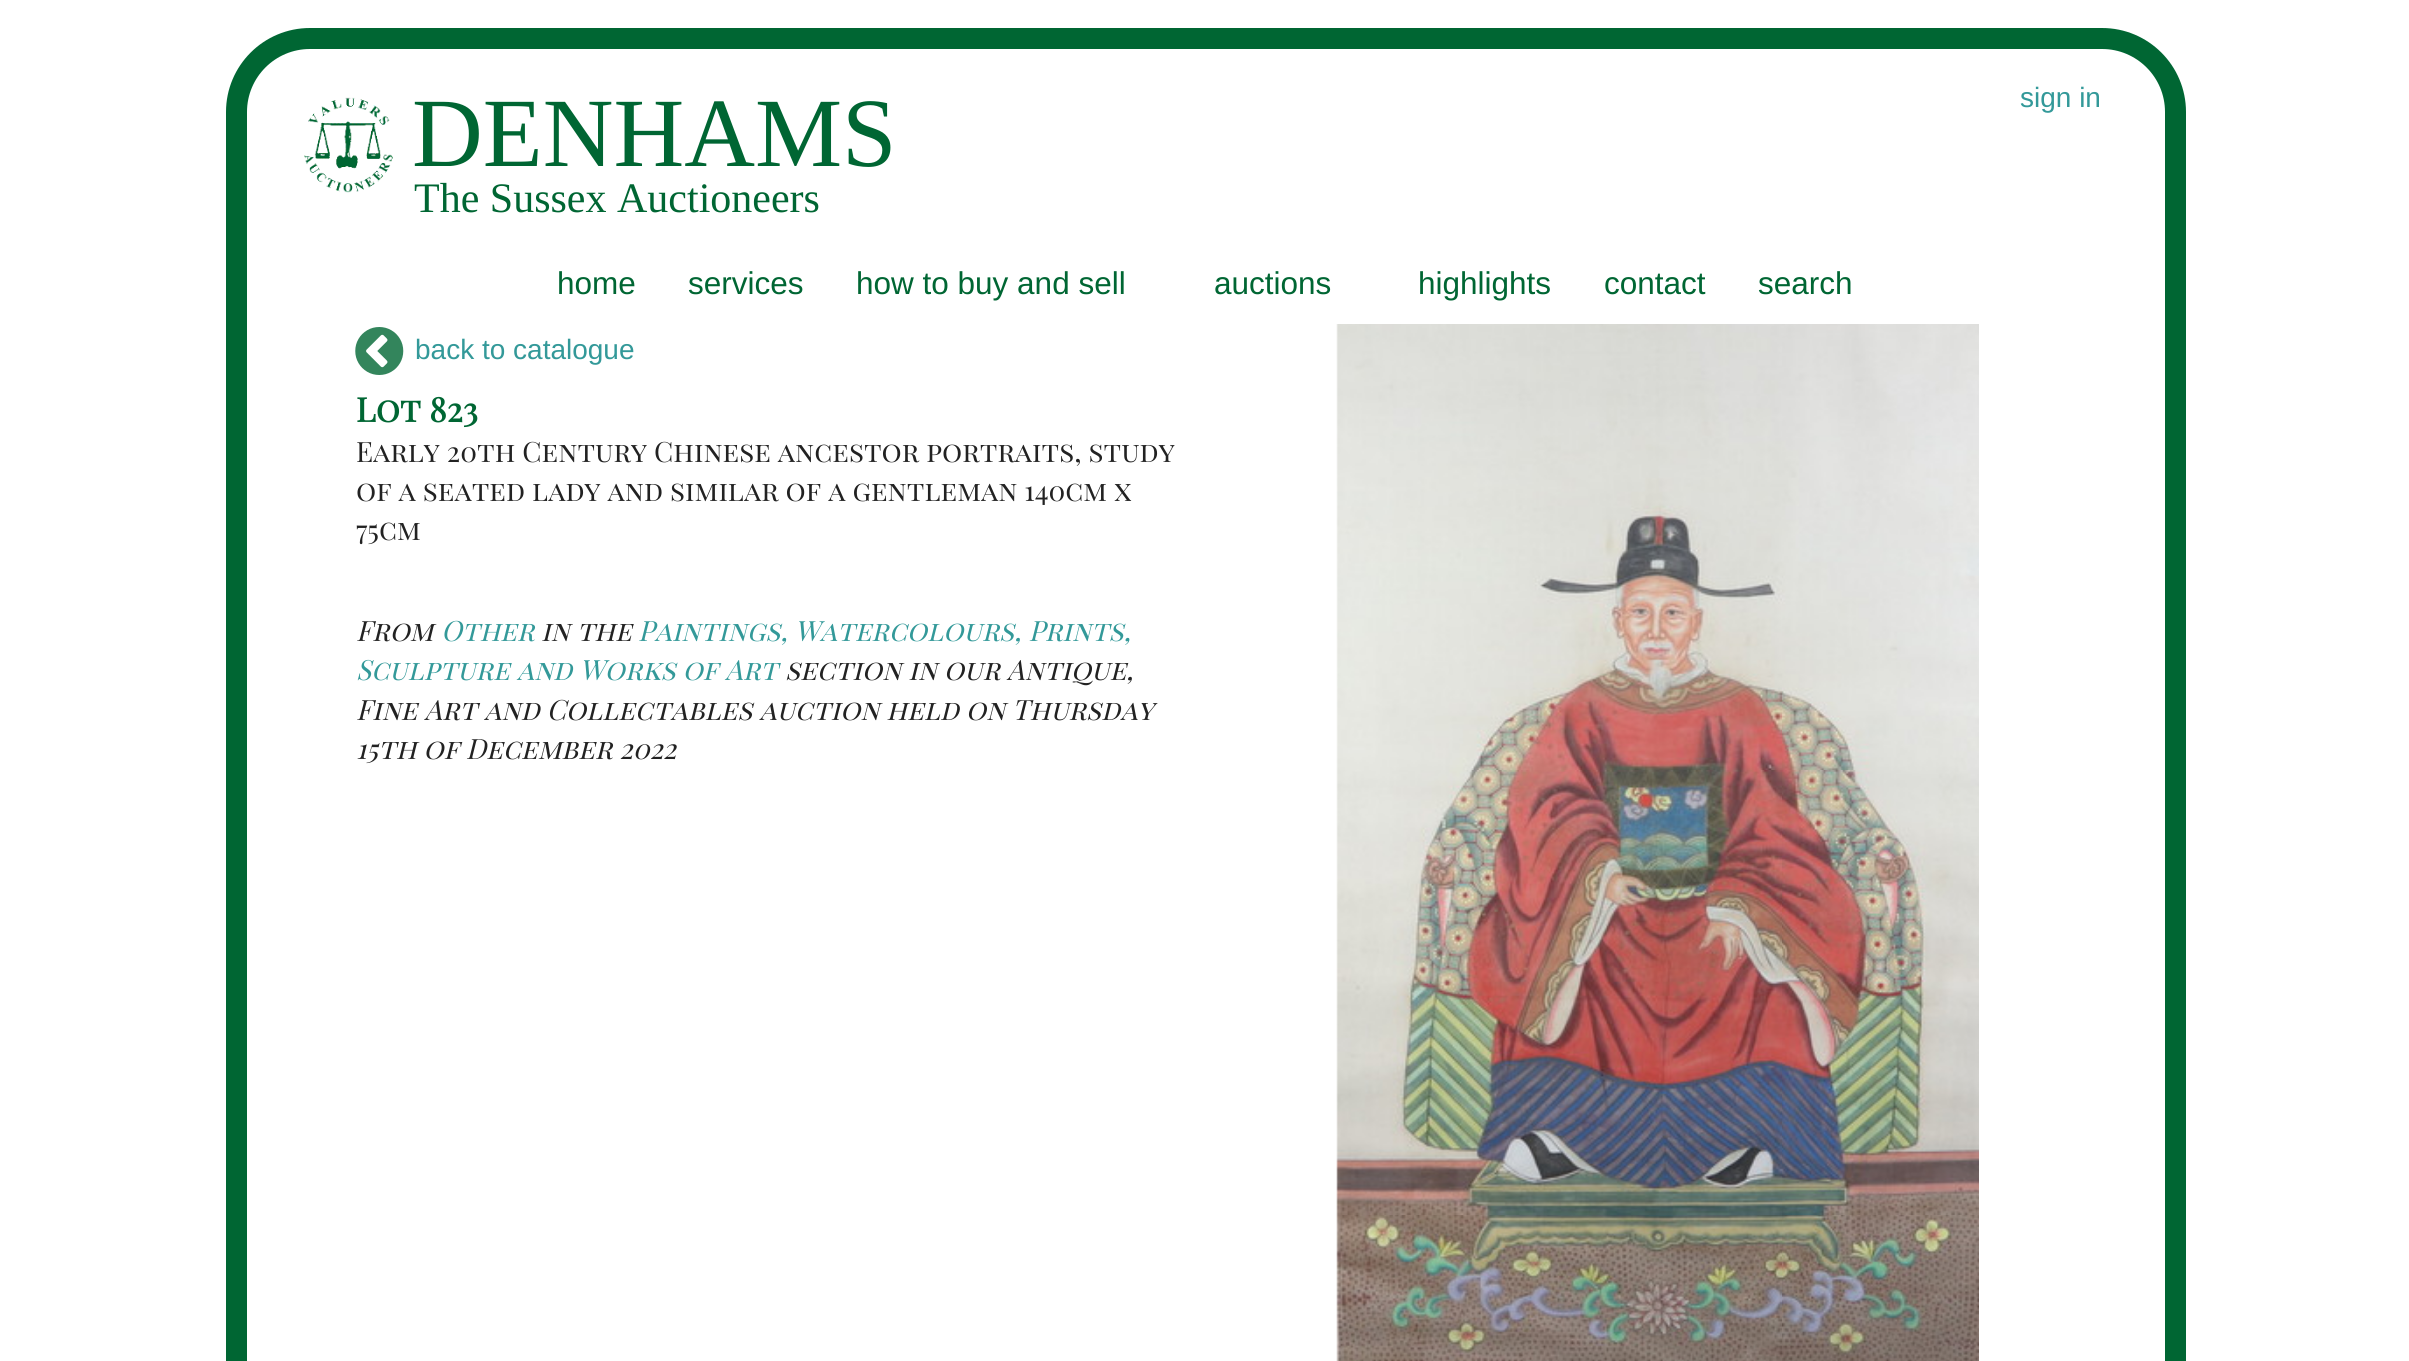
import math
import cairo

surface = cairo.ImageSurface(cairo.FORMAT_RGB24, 2409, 1361)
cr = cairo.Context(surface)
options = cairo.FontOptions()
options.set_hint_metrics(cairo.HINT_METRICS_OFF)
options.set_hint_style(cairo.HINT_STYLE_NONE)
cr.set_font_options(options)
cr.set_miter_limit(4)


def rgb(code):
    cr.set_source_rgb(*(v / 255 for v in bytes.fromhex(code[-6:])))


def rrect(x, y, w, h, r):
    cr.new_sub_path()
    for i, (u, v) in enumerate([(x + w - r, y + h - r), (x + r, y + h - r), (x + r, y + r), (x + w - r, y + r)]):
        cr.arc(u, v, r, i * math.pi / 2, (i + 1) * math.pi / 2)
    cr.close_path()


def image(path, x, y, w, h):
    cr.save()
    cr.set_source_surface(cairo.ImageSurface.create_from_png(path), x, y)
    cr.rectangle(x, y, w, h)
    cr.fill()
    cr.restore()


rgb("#ffffff")
cr.paint()
rrect(236.5, 38.5, 1939, 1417, 73.5)
rgb("#006633")
cr.set_line_width(21)
cr.stroke()
image("img/1.png", 304, 97, 89, 96)
image("img/2.png", 355, 327, 49, 48)
image("img/3.png", 1336, 324, 643, 1037)
cr.select_font_face("Liberation Serif")
cr.set_font_size(98)
cr.move_to(412, 166)
cr.show_text("DENHAMS")
cr.select_font_face("Liberation Sans")
cr.set_font_size(28)
rgb("#339999")
cr.move_to(2020, 107)
cr.show_text("sign in")
rgb("#ffffff")
cr.rectangle(427, 166, 24, 1)
cr.fill()
cr.select_font_face("Liberation Serif")
cr.set_font_size(42)
rgb("#006633")
cr.move_to(414, 212)
cr.show_text("The Sussex Auctioneers")
cr.select_font_face("Liberation Sans")
cr.set_font_size(31.5)
for x, y, s in [
    (557, 294, "home"),
    (688, 294, "services"),
    (856, 294, "how to buy and sell"),
    (1214, 294, "auctions"),
    (1418, 294, "highlights"),
    (1604, 294, "contact"),
    (1758, 294, "search"),
]:
    cr.move_to(x, y)
    cr.show_text(s)
cr.set_font_size(28)
rgb("#339999")
cr.move_to(415, 359)
cr.show_text("back to catalogue")
cr.select_font_face("Playfair Display SC", cairo.FONT_SLANT_NORMAL, cairo.FONT_WEIGHT_BOLD)
cr.set_font_size(33.5)
rgb("#006633")
cr.move_to(356, 422)
cr.show_text("Lot 823")
cr.select_font_face("Playfair Display SC")
cr.set_font_size(28)
rgb("#222222")
for x, y, s in [
    (356, 462, "Early 20th Century Chinese ancestor portraits, study"),
    (356, 501, "of a seated lady and similar of a gentleman 140cm x"),
    (356, 540, "75cm"),
]:
    cr.move_to(x, y)
    cr.show_text(s)
cr.select_font_face("Playfair Display SC", cairo.FONT_SLANT_ITALIC)
cr.move_to(356, 641)
cr.show_text("From")
rgb("#339999")
cr.move_to(441, 641)
cr.show_text("Other")
rgb("#222222")
cr.move_to(541, 641)
cr.show_text("in the")
rgb("#339999")
cr.move_to(638, 641)
cr.show_text("Paintings, Watercolours, Prints,")
cr.move_to(356, 680)
cr.show_text("Sculpture and Works of Art")
rgb("#222222")
for x, y, s in [
    (785, 680, "section in our Antique,"),
    (356, 720, "Fine Art and Collectables auction held on Thursday"),
    (356, 759, "15th of December 2022"),
]:
    cr.move_to(x, y)
    cr.show_text(s)
surface.write_to_png("page.png")
